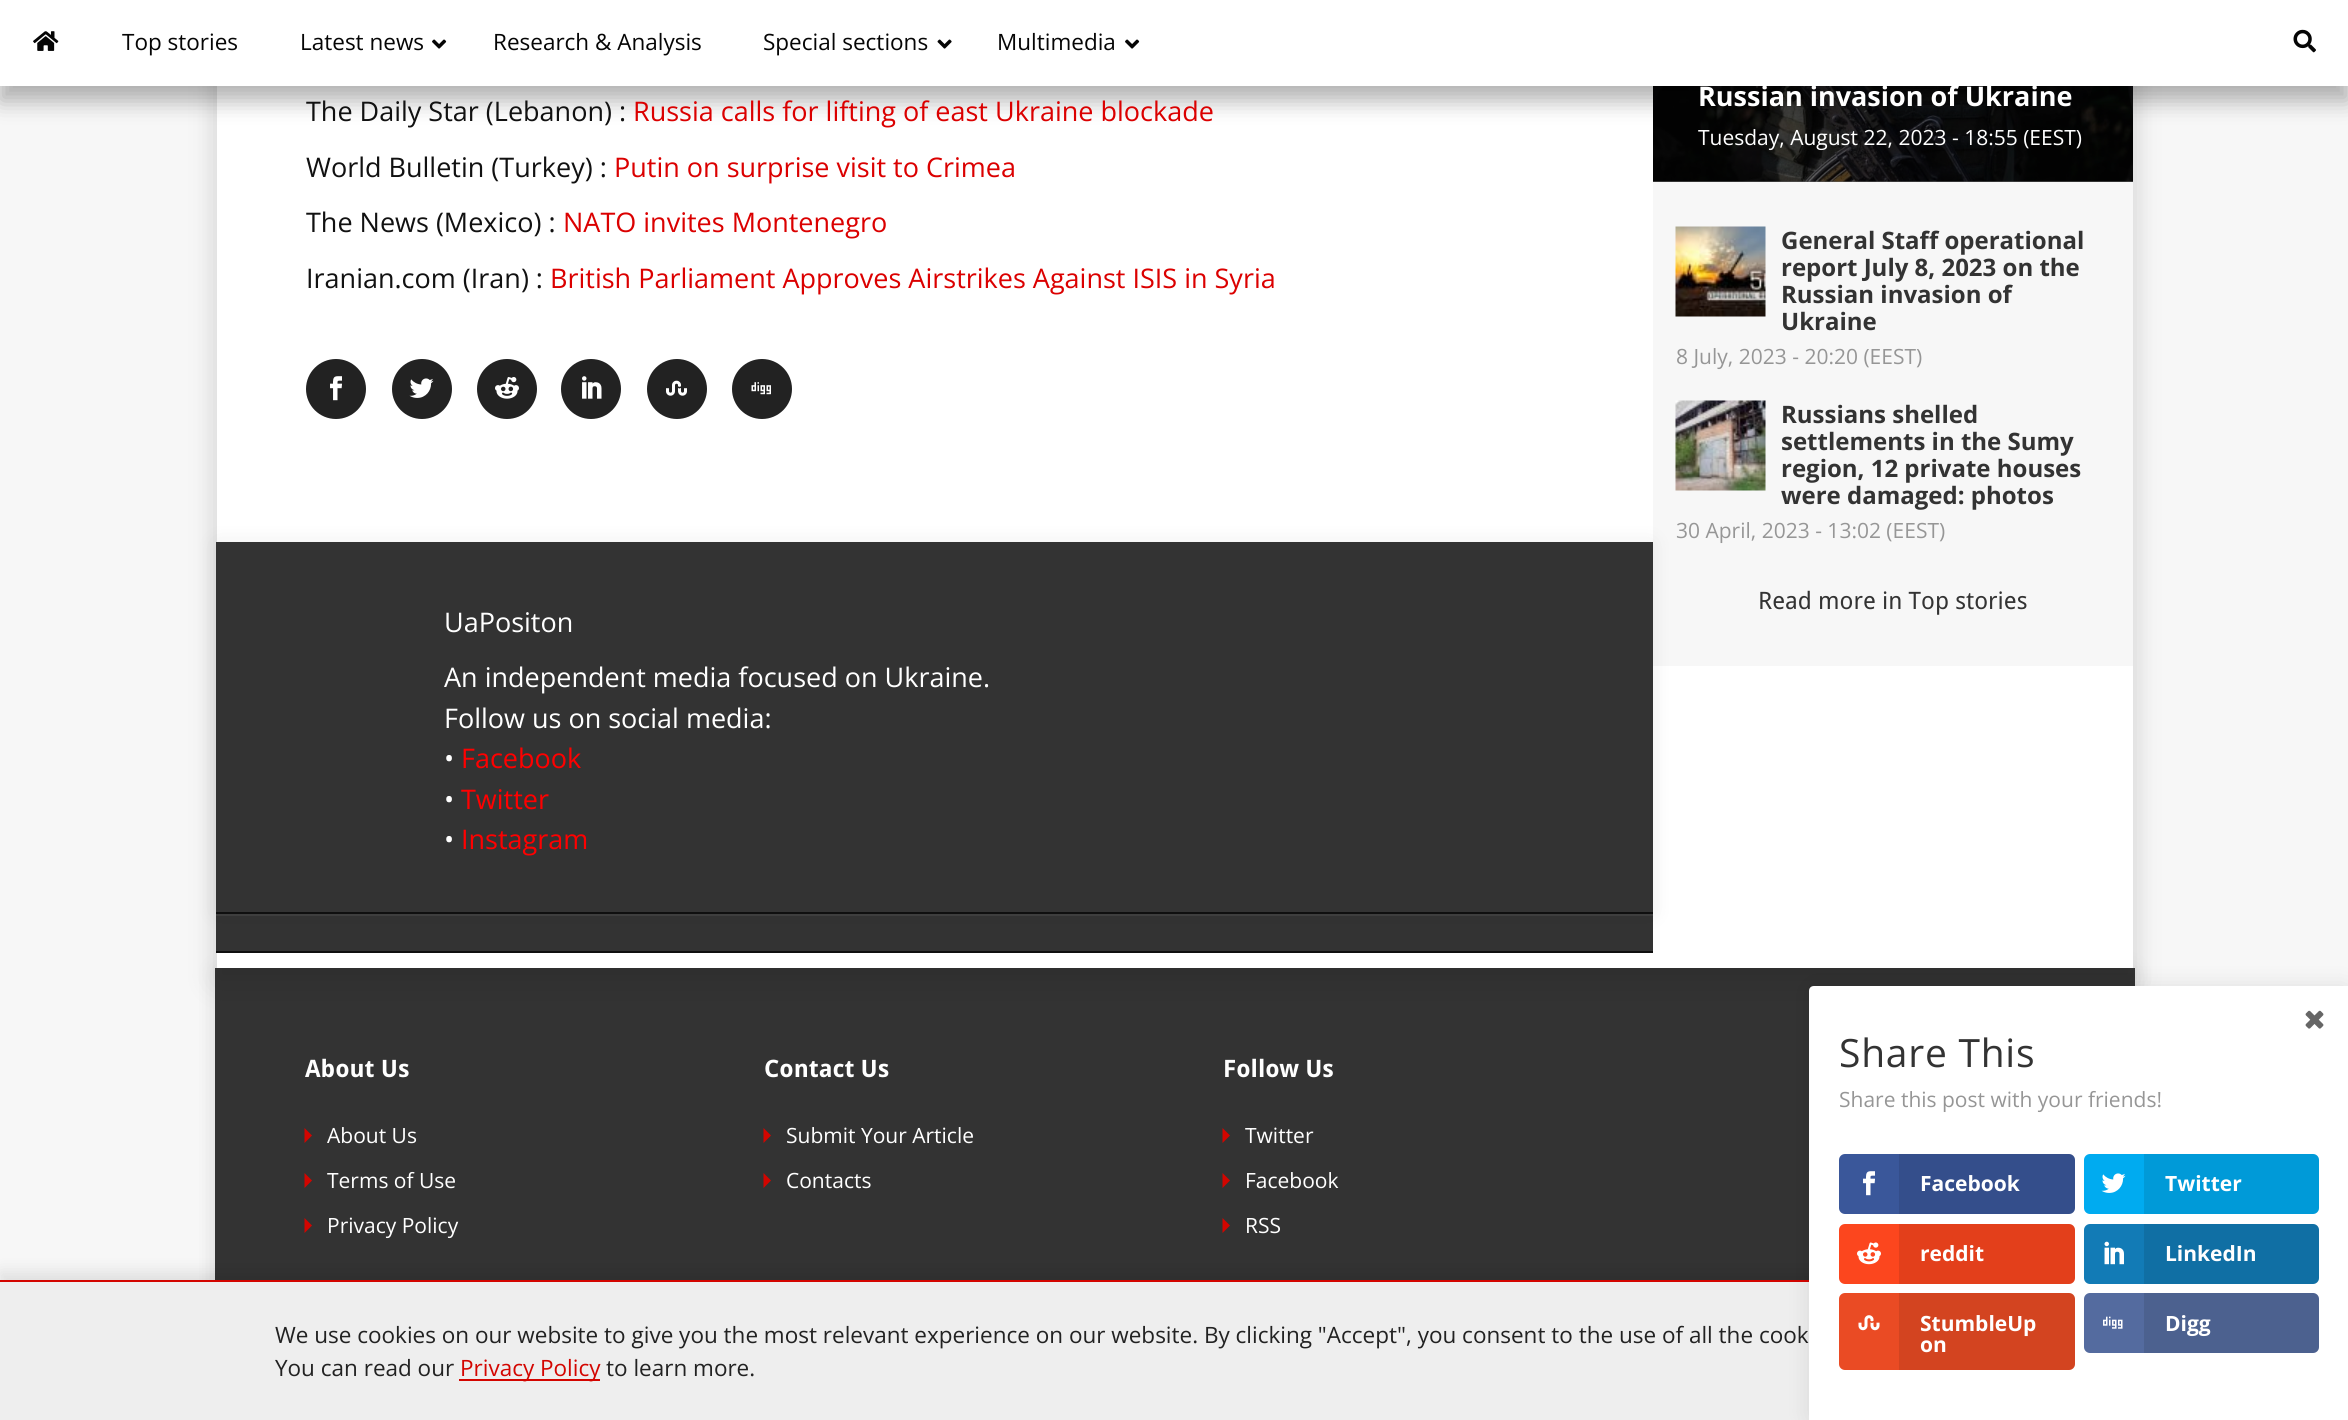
import math
import cairo

surface = cairo.ImageSurface(cairo.FORMAT_RGB24, 2348, 1420)
cr = cairo.Context(surface)
options = cairo.FontOptions()
options.set_hint_metrics(cairo.HINT_METRICS_OFF)
options.set_hint_style(cairo.HINT_STYLE_NONE)
cr.set_font_options(options)
cr.set_miter_limit(4)


def rgb(code):
    cr.set_source_rgb(*(v / 255 for v in bytes.fromhex(code[-6:])))


def tracked(x, y, s, letter, word):
    cr.move_to(x, y)
    for ch in s:
        cr.show_text(ch)
        cr.rel_move_to(letter + word * (ch == ' '), 0)


def rrect(x, y, w, h, r):
    cr.new_sub_path()
    for i, (u, v) in enumerate([(x + w - r, y + h - r), (x + r, y + h - r), (x + r, y + r), (x + w - r, y + r)]):
        cr.arc(u, v, r, i * math.pi / 2, (i + 1) * math.pi / 2)
    cr.close_path()


def soft_shadow(x, y, w, h, r, blur, alpha):
    cr.push_group_with_content(cairo.CONTENT_ALPHA)
    cr.set_operator(cairo.OPERATOR_SOURCE)
    for i in range(15, -16, -2):
        e = blur * i / 6
        if min(w, h) + 2 * e > 0:
            cr.set_source_rgba(0, 0, 0, alpha * math.erfc((i - 1) / 8.5) / 2)
            rrect(x - e, y - e, w + 2 * e, h + 2 * e, max(0, min(r + e + blur * .6, min(w, h) / 2 + e)))
            cr.fill()
    cr.mask(cr.pop_group())


def image(path, x, y, w, h):
    cr.save()
    cr.set_source_surface(cairo.ImageSurface.create_from_png(path), x, y)
    cr.rectangle(x, y, w, h)
    cr.fill()
    cr.restore()


rgb("#f7f7f7")
cr.paint()
rgb("#000000")
soft_shadow(215, -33, 1920, 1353, 0, 11, 0.07)
soft_shadow(215, 968, 1920, 349, 0, 11, 0.07)
rgb("#333333")
cr.rectangle(215, 968, 1920, 312)
cr.fill()
rgb("#000000")
soft_shadow(215, -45, 1920, 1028, 0, 15, 0.1)
rgb("#ffffff")
cr.rectangle(217, 86, 1916, 882)
cr.fill()
rgb("#656565")
cr.rectangle(1653, 181, 480, 1)
cr.fill()
image("img/11.png", 1653, 86, 480, 96)
rgb("#000000")
soft_shadow(0, 15, 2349, 86, 0, 11, 0.3)
rgb("#ffffff")
cr.rectangle(0, 0, 2348, 86)
cr.fill()
image("img/1.png", 33, 31, 26, 20)
image("img/2.png", 432, 39, 15, 10)
image("img/3.png", 937, 39, 15, 10)
image("img/2.png", 1125, 39, 15, 10)
image("img/4.png", 2293, 29, 23, 24)
rgb("#222222")
cr.arc(336, 389, 30, 0, 2 * math.pi)
cr.fill()
image("img/5.png", 330, 376, 12, 25)
cr.arc(422, 389, 30, 0, 2 * math.pi)
cr.fill()
image("img/6.png", 409, 378, 25, 20)
cr.arc(507, 389, 30, 0, 2 * math.pi)
cr.fill()
image("img/7.png", 495, 377, 24, 22)
cr.arc(591, 389, 30, 0, 2 * math.pi)
cr.fill()
image("img/8.png", 582, 376, 20, 23)
cr.arc(677, 389, 30, 0, 2 * math.pi)
cr.fill()
image("img/9.png", 666, 380, 21, 16)
cr.arc(762, 389, 30, 0, 2 * math.pi)
cr.fill()
image("img/10.png", 751, 382, 20, 13)
for x, y, w, h, color in [
    (216, 916, 1437, 35, "#333333"),
    (216, 914, 1437, 2, "#404040"),
    (1653, 182, 480, 484, "#f7f7f7"),
]:
    rgb(color)
    cr.rectangle(x, y, w, h)
    cr.fill()
rgb("#000000")
soft_shadow(216, 542, 1437, 372, 0, 11, 0.07)
for x, y, w, h, color in [
    (216, 542, 1437, 370, "#333333"),
    (216, 912, 1437, 2, "#0f0f0f"),
    (216, 951, 1437, 2, "#0f0f0f"),
]:
    rgb(color)
    cr.rectangle(x, y, w, h)
    cr.fill()
image("img/12.png", 1675, 226, 91, 91)
image("img/13.png", 1675, 400, 91, 91)
rgb("#d30500")
cr.new_path()
cr.move_to(304.5, 1143)
cr.line_to(304.5, 1128)
cr.line_to(312, 1135.5)
cr.close_path()
cr.fill()
cr.new_path()
cr.move_to(304.5, 1188)
cr.line_to(304.5, 1173)
cr.line_to(312, 1180.5)
cr.close_path()
cr.fill()
cr.new_path()
cr.move_to(304.5, 1233)
cr.line_to(304.5, 1218)
cr.line_to(312, 1225.5)
cr.close_path()
cr.fill()
cr.new_path()
cr.move_to(763.5, 1143)
cr.line_to(763.5, 1128)
cr.line_to(771, 1135.5)
cr.close_path()
cr.fill()
cr.new_path()
cr.move_to(763.5, 1188)
cr.line_to(763.5, 1173)
cr.line_to(771, 1180.5)
cr.close_path()
cr.fill()
cr.new_path()
cr.move_to(1222.5, 1143)
cr.line_to(1222.5, 1128)
cr.line_to(1230, 1135.5)
cr.close_path()
cr.fill()
cr.new_path()
cr.move_to(1222.5, 1188)
cr.line_to(1222.5, 1173)
cr.line_to(1230, 1180.5)
cr.close_path()
cr.fill()
cr.new_path()
cr.move_to(1222.5, 1233)
cr.line_to(1222.5, 1218)
cr.line_to(1230, 1225.5)
cr.close_path()
cr.fill()
rgb("#000000")
soft_shadow(0, 1272, 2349, 141, 0, 7.5, 0.1)
for x, y, w, h, color in [
    (0, 1282, 1809, 138, "#eeeeee"),
    (0, 1280, 1809, 2, "#d30500"),
    (459, 1379, 141, 2, "#d30500"),
]:
    rgb(color)
    cr.rectangle(x, y, w, h)
    cr.fill()
rgb("#000000")
soft_shadow(1809, 986, 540, 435, 5, 11, 0.1)
rgb("#ffffff")
cr.new_path()
cr.move_to(1814, 986)
cr.line_to(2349, 986)
cr.line_to(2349, 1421)
cr.line_to(1809, 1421)
cr.line_to(1809, 991)
cr.curve_to(1809, 988, 1811, 986, 1814, 986)
cr.close_path()
cr.fill()
image("img/14.png", 2305, 1010, 19, 19)
rgb("#3a579a")
rrect(1839, 1154, 236, 60, 6)
cr.fill()
image("img/15.png", 1863, 1171, 12, 25)
cr.set_source_rgba(0, 0, 0, 0.1)
cr.new_path()
cr.move_to(1899, 1154)
cr.line_to(2069, 1154)
cr.curve_to(2072.5, 1154, 2075, 1156.5, 2075, 1160)
cr.line_to(2075, 1208)
cr.curve_to(2075, 1211.5, 2072.5, 1214, 2069, 1214)
cr.line_to(1899, 1214)
cr.close_path()
cr.fill()
rgb("#00abf0")
rrect(2084, 1154, 235, 60, 6)
cr.fill()
image("img/16.png", 2101, 1173, 25, 20)
cr.set_source_rgba(0, 0, 0, 0.1)
cr.new_path()
cr.move_to(2144, 1154)
cr.line_to(2313, 1154)
cr.curve_to(2316.5, 1154, 2319, 1156.5, 2319, 1160)
cr.line_to(2319, 1208)
cr.curve_to(2319, 1211.5, 2316.5, 1214, 2313, 1214)
cr.line_to(2144, 1214)
cr.close_path()
cr.fill()
rgb("#fc461e")
rrect(1839, 1224, 236, 60, 6)
cr.fill()
image("img/17.png", 1857, 1242, 24, 23)
cr.set_source_rgba(0, 0, 0, 0.1)
cr.new_path()
cr.move_to(1899, 1224)
cr.line_to(2069, 1224)
cr.curve_to(2072.5, 1224, 2075, 1226.5, 2075, 1230)
cr.line_to(2075, 1278)
cr.curve_to(2075, 1281.5, 2072.5, 1284, 2069, 1284)
cr.line_to(1899, 1284)
cr.close_path()
cr.fill()
rgb("#127bb6")
rrect(2084, 1224, 235, 60, 6)
cr.fill()
image("img/18.png", 2104, 1241, 20, 24)
cr.set_source_rgba(0, 0, 0, 0.1)
cr.new_path()
cr.move_to(2144, 1224)
cr.line_to(2313, 1224)
cr.curve_to(2316.5, 1224, 2319, 1226.5, 2319, 1230)
cr.line_to(2319, 1278)
cr.curve_to(2319, 1281.5, 2316.5, 1284, 2313, 1284)
cr.line_to(2144, 1284)
cr.close_path()
cr.fill()
rgb("#ea4b24")
rrect(1839, 1293, 236, 77, 6)
cr.fill()
image("img/19.png", 1858, 1315, 22, 16)
cr.set_source_rgba(0, 0, 0, 0.1)
cr.new_path()
cr.move_to(1899, 1293)
cr.line_to(2069, 1293)
cr.curve_to(2072.5, 1293, 2075, 1295.5, 2075, 1299)
cr.line_to(2075, 1364)
cr.curve_to(2075, 1367.5, 2072.5, 1370, 2069, 1370)
cr.line_to(1899, 1370)
cr.close_path()
cr.fill()
rgb("#546b9f")
rrect(2084, 1293, 235, 60, 6)
cr.fill()
cr.set_source_rgba(0, 0, 0, 0.1)
cr.new_path()
cr.move_to(2144, 1293)
cr.line_to(2313, 1293)
cr.curve_to(2316.5, 1293, 2319, 1295.5, 2319, 1299)
cr.line_to(2319, 1347)
cr.curve_to(2319, 1350.5, 2316.5, 1353, 2313, 1353)
cr.line_to(2144, 1353)
cr.close_path()
cr.fill()
image("img/20.png", 2103, 1316, 20, 13)
cr.select_font_face("Open Sans")
cr.set_font_size(22.5)
rgb("#050505")
for x, y, s in [
    (122, 50, "Top stories"),
    (300, 50, "Latest news"),
    (493, 50, "Research & Analysis"),
    (763, 50, "Special sections"),
    (997, 50, "Multimedia"),
]:
    cr.move_to(x, y)
    cr.show_text(s)
cr.set_font_size(27)
rgb("#111111")
cr.move_to(306, 121)
cr.show_text("The Daily Star (Lebanon) :")
rgb("#db0000")
cr.move_to(633, 121)
cr.show_text("Russia calls for lifting of east Ukraine blockade")
rgb("#111111")
cr.move_to(306, 177)
cr.show_text("World Bulletin (Turkey) :")
rgb("#db0000")
cr.move_to(614, 177)
cr.show_text("Putin on surprise visit to Crimea")
rgb("#111111")
cr.move_to(306, 232)
cr.show_text("The News (Mexico) :")
rgb("#db0000")
cr.move_to(563, 232)
cr.show_text("NATO invites Montenegro")
rgb("#111111")
cr.move_to(306, 288)
cr.show_text("Iranian.com (Iran) :")
rgb("#db0000")
cr.move_to(550, 288)
cr.show_text("British Parliament Approves Airstrikes Against ISIS in Syria")
rgb("#ffffff")
for x, y, s in [
    (444, 632, "UaPositon"),
    (444, 687, "An independent media focused on Ukraine."),
    (444, 728, "Follow us on social media:"),
    (444, 768, "•"),
]:
    cr.move_to(x, y)
    cr.show_text(s)
rgb("#ff0000")
cr.move_to(461, 768)
cr.show_text("Facebook")
rgb("#ffffff")
cr.move_to(444, 809)
cr.show_text("•")
rgb("#ff0000")
cr.move_to(461, 809)
cr.show_text("Twitter")
rgb("#ffffff")
cr.move_to(444, 849)
cr.show_text("•")
rgb("#ff0000")
cr.move_to(461, 849)
cr.show_text("Instagram")
cr.select_font_face("Open Sans", cairo.FONT_SLANT_NORMAL, cairo.FONT_WEIGHT_BOLD)
rgb("#ffffff")
cr.move_to(1698, 106)
cr.show_text("Russian invasion of Ukraine")
cr.select_font_face("Open Sans")
cr.set_font_size(21)
cr.move_to(1698, 145)
cr.show_text("Tuesday, August 22, 2023 - 18:55 (EEST)")
cr.select_font_face("Open Sans", cairo.FONT_SLANT_NORMAL, cairo.FONT_WEIGHT_BOLD)
cr.set_font_size(24)
rgb("#333333")
for x, y, s in [
    (1781, 249, "General Staff operational"),
    (1781, 276, "report July 8, 2023 on the"),
    (1781, 303, "Russian invasion of"),
    (1781, 330, "Ukraine"),
]:
    cr.move_to(x, y)
    cr.show_text(s)
cr.select_font_face("Open Sans")
cr.set_font_size(21)
rgb("#969696")
cr.move_to(1676, 364)
cr.show_text("8 July, 2023 - 20:20 (EEST)")
cr.select_font_face("Open Sans", cairo.FONT_SLANT_NORMAL, cairo.FONT_WEIGHT_BOLD)
cr.set_font_size(24)
rgb("#333333")
for x, y, s in [
    (1781, 423, "Russians shelled"),
    (1781, 450, "settlements in the Sumy"),
    (1781, 477, "region, 12 private houses"),
    (1781, 504, "were damaged: photos"),
]:
    cr.move_to(x, y)
    cr.show_text(s)
cr.select_font_face("Open Sans")
cr.set_font_size(21)
rgb("#969696")
cr.move_to(1676, 538)
cr.show_text("30 April, 2023 - 13:02 (EEST)")
cr.select_font_face("Droid Sans")
cr.set_font_size(24)
rgb("#333333")
cr.move_to(1758, 609)
cr.show_text("Read more in Top stories")
cr.select_font_face("Droid Sans", cairo.FONT_SLANT_NORMAL, cairo.FONT_WEIGHT_BOLD)
rgb("#ffffff")
cr.move_to(305, 1077)
cr.show_text("About Us")
cr.select_font_face("Open Sans")
cr.set_font_size(21)
for x, y, s in [
    (327, 1143, "About Us"),
    (327, 1188, "Terms of Use"),
    (327, 1233, "Privacy Policy"),
]:
    cr.move_to(x, y)
    cr.show_text(s)
cr.select_font_face("Droid Sans", cairo.FONT_SLANT_NORMAL, cairo.FONT_WEIGHT_BOLD)
cr.set_font_size(24)
cr.move_to(764, 1077)
cr.show_text("Contact Us")
cr.select_font_face("Open Sans")
cr.set_font_size(21)
cr.move_to(786, 1143)
cr.show_text("Submit Your Article")
cr.move_to(786, 1188)
cr.show_text("Contacts")
cr.select_font_face("Droid Sans", cairo.FONT_SLANT_NORMAL, cairo.FONT_WEIGHT_BOLD)
cr.set_font_size(24)
cr.move_to(1223, 1077)
cr.show_text("Follow Us")
cr.select_font_face("Open Sans")
cr.set_font_size(21)
for x, y, s in [
    (1245, 1143, "Twitter"),
    (1245, 1188, "Facebook"),
    (1245, 1233, "RSS"),
]:
    cr.move_to(x, y)
    cr.show_text(s)
cr.set_font_size(22.5)
rgb("#222222")
cr.move_to(275, 1343)
cr.show_text("We use cookies on our website to give you the most relevant experience on our website. By clicking \"Accept\", you consent to the use of all the cook")
cr.move_to(275, 1376)
cr.show_text("You can read our")
rgb("#d30500")
cr.move_to(460, 1376)
cr.show_text("Privacy Policy")
rgb("#222222")
cr.move_to(606, 1376)
cr.show_text("to learn more.")
cr.set_font_size(39)
rgb("#333333")
tracked(1839, 1067, "Share This", 0.75, 0)
cr.set_font_size(21)
rgb("#969696")
cr.move_to(1839, 1107)
cr.show_text("Share this post with your friends!")
cr.select_font_face("Open Sans", cairo.FONT_SLANT_NORMAL, cairo.FONT_WEIGHT_BOLD)
rgb("#ffffff")
for x, y, s in [
    (1920, 1191, "Facebook"),
    (2165, 1191, "Twitter"),
    (1920, 1261, "reddit"),
    (2165, 1261, "LinkedIn"),
    (1920, 1331, "StumbleUp"),
    (1920, 1352, "on"),
    (2165, 1331, "Digg"),
]:
    cr.move_to(x, y)
    cr.show_text(s)
surface.write_to_png("page.png")
